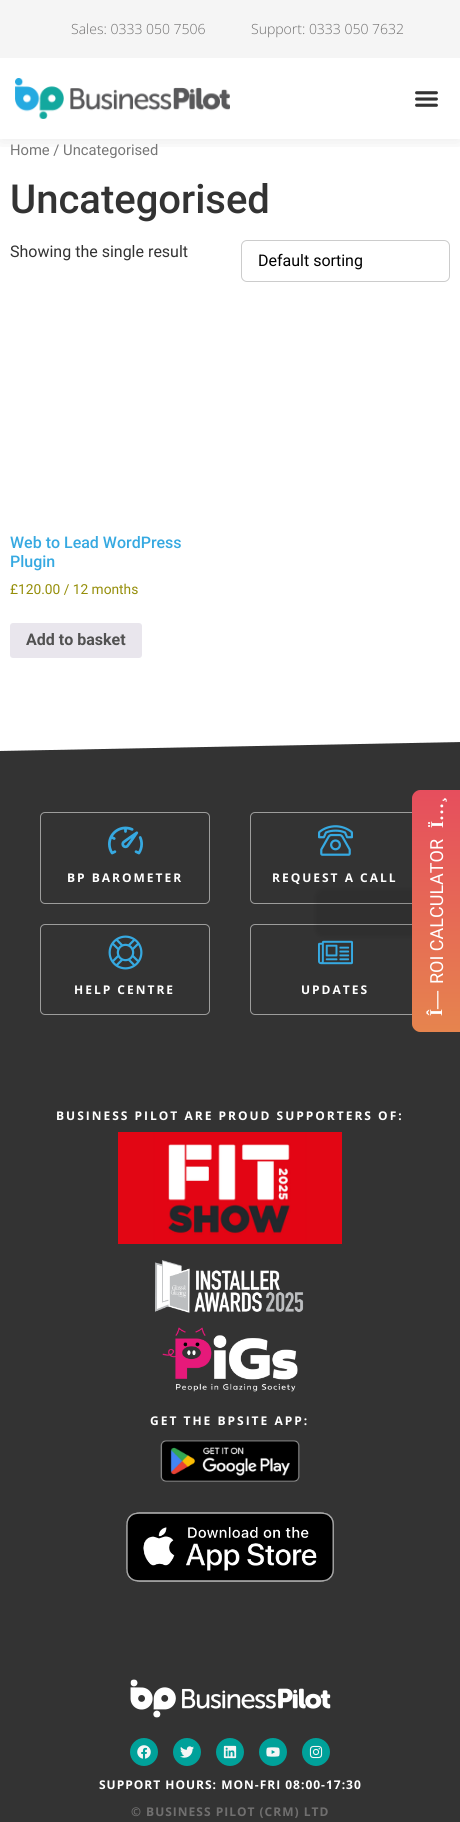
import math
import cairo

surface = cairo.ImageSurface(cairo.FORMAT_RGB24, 460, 1822)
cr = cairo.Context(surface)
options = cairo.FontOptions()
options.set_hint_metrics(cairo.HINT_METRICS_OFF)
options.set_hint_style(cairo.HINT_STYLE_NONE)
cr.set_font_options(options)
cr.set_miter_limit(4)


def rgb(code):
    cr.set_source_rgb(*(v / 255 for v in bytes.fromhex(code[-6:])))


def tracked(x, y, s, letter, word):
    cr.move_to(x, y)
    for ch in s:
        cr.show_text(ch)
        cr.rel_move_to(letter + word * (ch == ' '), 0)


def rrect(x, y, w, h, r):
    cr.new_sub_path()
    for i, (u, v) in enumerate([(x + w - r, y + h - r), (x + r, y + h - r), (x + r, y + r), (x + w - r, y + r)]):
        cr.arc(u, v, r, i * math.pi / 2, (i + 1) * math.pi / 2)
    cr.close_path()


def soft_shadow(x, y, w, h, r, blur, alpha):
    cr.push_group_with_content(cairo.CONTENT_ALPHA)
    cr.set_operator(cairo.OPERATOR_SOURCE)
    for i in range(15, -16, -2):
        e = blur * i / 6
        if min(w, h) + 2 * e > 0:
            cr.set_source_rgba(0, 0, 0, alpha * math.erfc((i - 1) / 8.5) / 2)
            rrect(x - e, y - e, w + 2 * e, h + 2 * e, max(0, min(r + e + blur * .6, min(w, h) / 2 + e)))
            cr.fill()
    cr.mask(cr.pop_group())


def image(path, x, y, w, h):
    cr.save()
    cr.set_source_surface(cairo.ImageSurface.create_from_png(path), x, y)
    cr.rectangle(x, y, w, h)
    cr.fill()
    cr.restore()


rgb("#ffffff")
cr.paint()
cr.save()
cr.rectangle(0, 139, 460, 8)
cr.clip()
rgb("#000000")
soft_shadow(0, 0, 460, 139, 0, 10, 0.1)
cr.restore()
rgb("#f5f5f5")
cr.rectangle(0, 0, 460, 58)
cr.fill()
image("img/1.png", 15, 78, 215, 41)
image("img/2.png", 415, 91, 23, 16)
rrect(241.5, 240.5, 208, 41, 5.5)
rgb("#cccccc")
cr.set_line_width(1)
cr.stroke()
rgb("#e9e6ed")
rrect(10, 623, 132, 35, 3)
cr.fill()
rgb("#333333")
cr.rectangle(0, 742, 460, 1080)
cr.fill()
rgb("#ffffff")
cr.new_path()
cr.move_to(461, 742)
cr.line_to(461, 741)
cr.line_to(-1, 741)
cr.line_to(-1, 751)
cr.close_path()
cr.fill()
rrect(40.5, 812.5, 169, 91, 4.5)
rgb("#9d9d9c")
cr.stroke()
image("img/3.png", 108, 826, 35, 29)
rrect(40.5, 924.5, 169, 90, 4.5)
cr.stroke()
image("img/4.png", 108, 935, 35, 35)
rrect(250.5, 812.5, 169, 91, 4.5)
cr.stroke()
image("img/5.png", 318, 825, 35, 31)
rrect(250.5, 924.5, 169, 90, 4.5)
cr.stroke()
image("img/6.png", 318, 940, 35, 25)
image("img/7.png", 118, 1132, 224, 112)
image("img/8.png", 155, 1260, 149, 53)
image("img/9.png", 162, 1327, 136, 65)
image("img/10.png", 160, 1440, 140, 42)
image("img/11.png", 126, 1512, 208, 70)
rgb("#000000")
soft_shadow(315, 889, 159, 48, 8, 2, 0.08)
gradient = cairo.LinearGradient(436, 1032, 436, 790)
gradient.add_color_stop_rgba(0, 0.902, 0.518, 0.306, 1)
gradient.add_color_stop_rgba(1, 0.902, 0.306, 0.365, 1)
cr.set_source(gradient)
cr.new_path()
cr.move_to(412, 1024)
cr.line_to(412, 798)
cr.curve_to(412, 794, 416, 790, 420, 790)
cr.line_to(460, 790)
cr.line_to(460, 1032)
cr.line_to(420, 1032)
cr.curve_to(416, 1032, 412, 1028, 412, 1024)
cr.close_path()
cr.fill()
image("img/12.png", 130, 1679, 201, 39)
rgb("#00a19a")
cr.arc(144, 1752, 14, 0, 2 * math.pi)
cr.fill()
image("img/13.png", 137, 1745, 14, 14)
cr.arc(187, 1752, 14, 0, 2 * math.pi)
cr.fill()
image("img/14.png", 180, 1746, 14, 12)
cr.arc(230, 1752, 14, 0, 2 * math.pi)
cr.fill()
image("img/15.png", 223, 1745, 14, 14)
cr.arc(273, 1752, 14, 0, 2 * math.pi)
cr.fill()
image("img/16.png", 266, 1747, 14, 10)
cr.arc(316, 1752, 14, 0, 2 * math.pi)
cr.fill()
image("img/17.png", 309, 1745, 14, 14)
cr.select_font_face("Open Sans Light")
cr.set_font_size(14)
rgb("#706f6f")
cr.move_to(71, 34)
cr.show_text("Sales: 0333 050 7506")
cr.move_to(251, 34)
cr.show_text("Support: 0333 050 7632")
cr.select_font_face("Roboto")
cr.set_font_size(14.75)
rgb("#767676")
cr.move_to(10, 155)
cr.show_text("Home / Uncategorised")
cr.select_font_face("Roboto Medium")
cr.set_font_size(40)
rgb("#333333")
cr.move_to(10, 213)
cr.show_text("Uncategorised")
cr.select_font_face("Roboto")
cr.set_font_size(16)
cr.move_to(10, 257)
cr.show_text("Showing the single result")
rgb("#000000")
cr.move_to(258, 266)
cr.show_text("Default sorting")
cr.select_font_face("Roboto Medium")
rgb("#36a9e1")
cr.move_to(10, 548)
cr.show_text("Web to Lead WordPress")
cr.move_to(10, 567)
cr.show_text("Plugin")
cr.select_font_face("Roboto")
cr.set_font_size(13.75)
rgb("#958e09")
cr.move_to(10, 594)
cr.show_text("£120.00 / 12 months")
cr.select_font_face("Roboto", cairo.FONT_SLANT_NORMAL, cairo.FONT_WEIGHT_BOLD)
cr.set_font_size(16)
rgb("#515151")
cr.move_to(26, 645)
cr.show_text("Add to basket")
cr.select_font_face("Open Sans", cairo.FONT_SLANT_NORMAL, cairo.FONT_WEIGHT_BOLD)
cr.set_font_size(12)
rgb("#ffffff")
for x, y, s in [
    (67, 882, "BP BAROMETER"),
    (74, 994, "HELP CENTRE"),
    (272, 882, "REQUEST A CALL"),
    (301, 994, "UPDATES"),
    (56, 1120, "BUSINESS PILOT ARE PROUD SUPPORTERS OF:"),
    (150, 1425, "GET THE BPSITE APP:"),
]:
    tracked(x, y, s, 2, 0)
cr.select_font_face("Liberation Serif", cairo.FONT_SLANT_NORMAL, cairo.FONT_WEIGHT_BOLD)
cr.set_font_size(18)
cr.save()
cr.translate(443, 828)
cr.rotate(-90 * math.pi / 180)
cr.move_to(0, 0)
cr.show_text("Ï…¸")
cr.restore()
cr.select_font_face("Roboto")
cr.save()
cr.translate(443, 984)
cr.rotate(-90 * math.pi / 180)
cr.move_to(0, 0)
cr.show_text("ROI CALCULATOR")
cr.restore()
cr.select_font_face("Liberation Serif", cairo.FONT_SLANT_NORMAL, cairo.FONT_WEIGHT_BOLD)
cr.save()
cr.translate(442, 1016)
cr.rotate(-90 * math.pi / 180)
cr.move_to(0, 0)
cr.show_text("Î—")
cr.restore()
cr.select_font_face("Open Sans", cairo.FONT_SLANT_NORMAL, cairo.FONT_WEIGHT_BOLD)
cr.set_font_size(12)
tracked(99, 1789, "SUPPORT HOURS: MON-FRI 08:00-17:30", 1, 0)
rgb("#706f6f")
tracked(131, 1816, "© BUSINESS PILOT (CRM) LTD", 1, 0)
surface.write_to_png("page.png")
